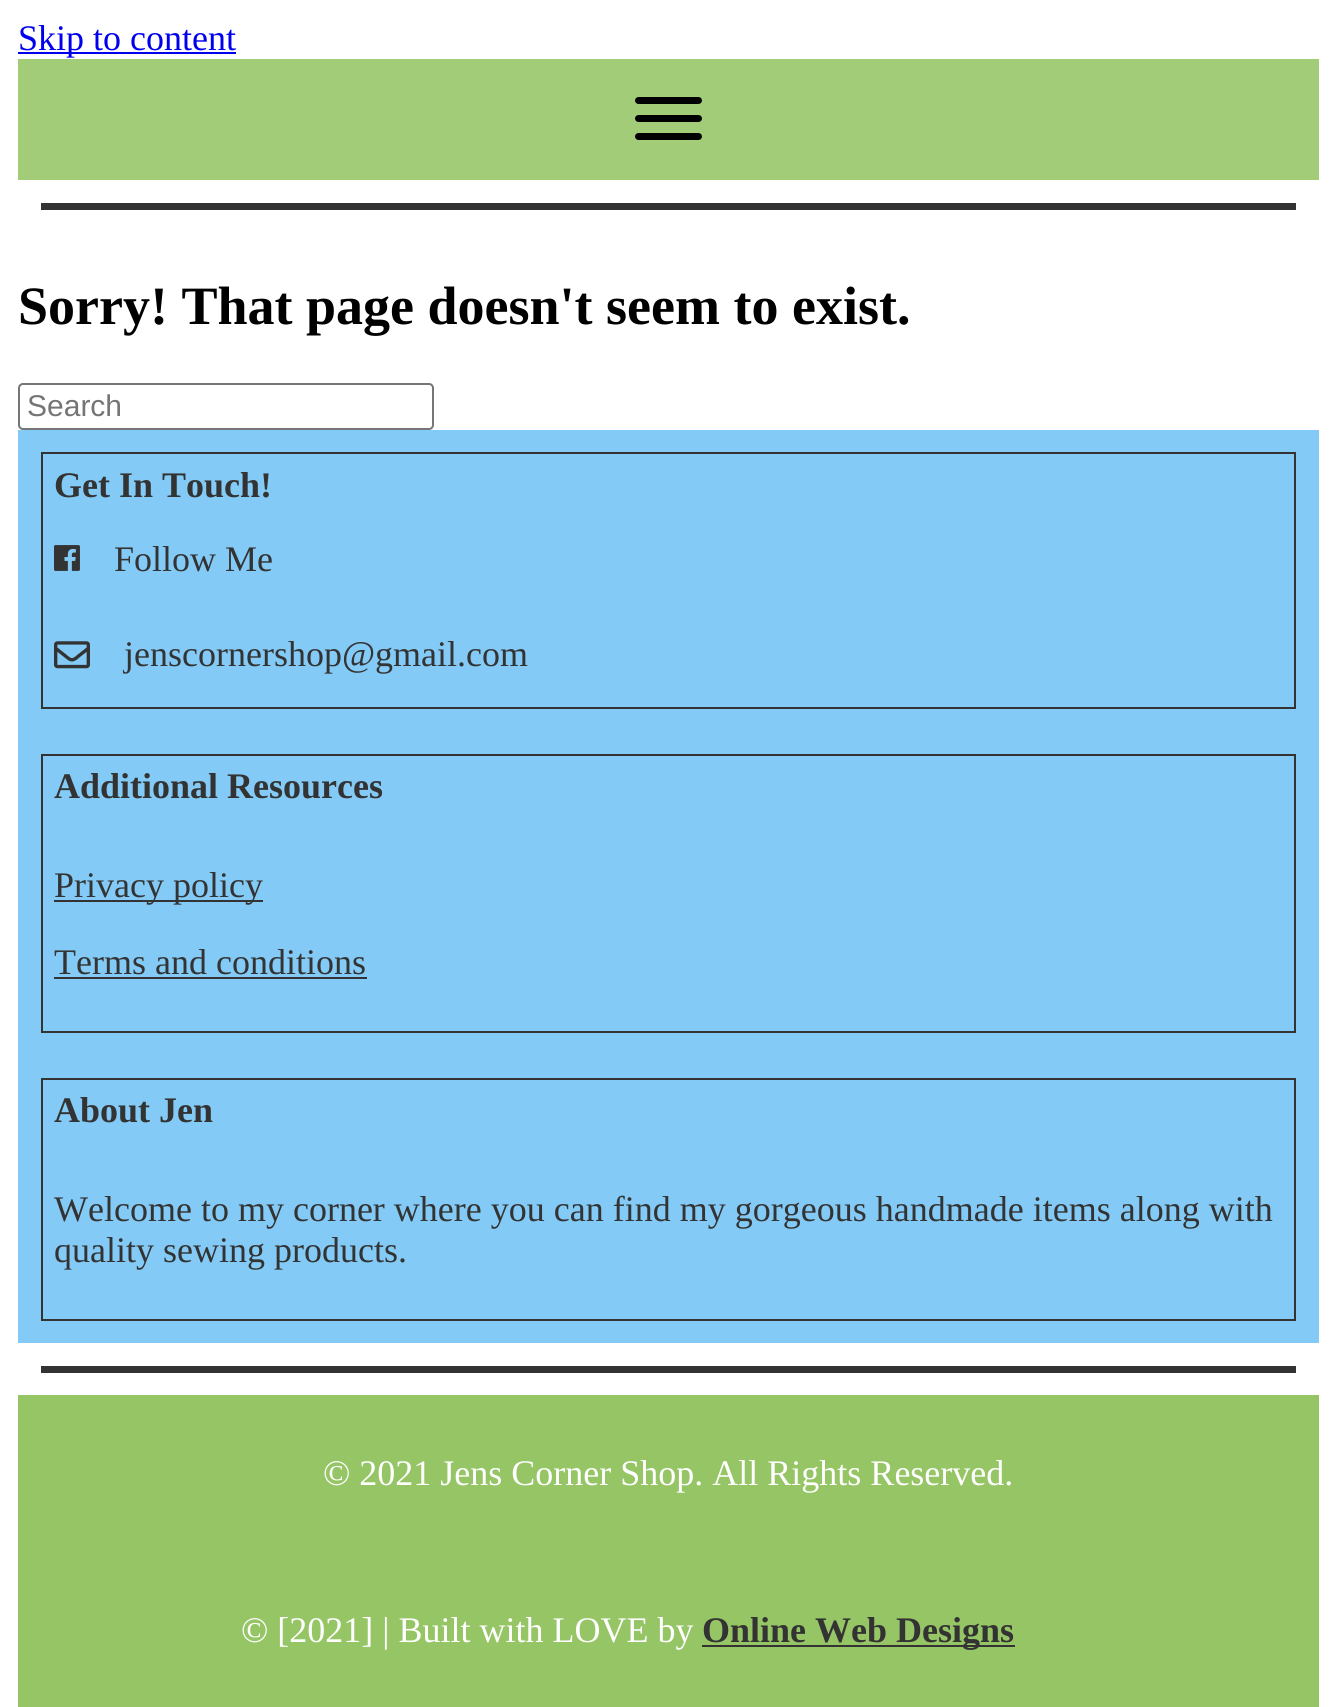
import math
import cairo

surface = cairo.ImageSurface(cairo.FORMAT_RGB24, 1336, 1707)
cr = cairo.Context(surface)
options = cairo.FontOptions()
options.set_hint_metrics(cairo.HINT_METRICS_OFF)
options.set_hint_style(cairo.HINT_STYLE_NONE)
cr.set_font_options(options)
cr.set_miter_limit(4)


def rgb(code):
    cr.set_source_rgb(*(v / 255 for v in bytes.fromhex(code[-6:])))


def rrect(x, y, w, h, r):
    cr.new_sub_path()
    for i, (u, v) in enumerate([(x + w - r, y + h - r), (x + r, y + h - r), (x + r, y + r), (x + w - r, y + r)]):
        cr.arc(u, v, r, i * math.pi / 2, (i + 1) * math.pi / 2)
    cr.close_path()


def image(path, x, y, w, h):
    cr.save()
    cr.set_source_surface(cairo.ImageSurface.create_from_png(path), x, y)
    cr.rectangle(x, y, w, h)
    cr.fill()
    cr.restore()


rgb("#ffffff")
cr.paint()
rgb("#0000ee")
cr.rectangle(18, 52, 218, 2)
cr.fill()
rgb("#a3cc78")
cr.rectangle(18, 59, 1301, 121)
cr.fill()
rgb("#000000")
rrect(635, 115, 67, 7, 3.5)
cr.fill()
rrect(635, 97, 67, 7, 3.5)
cr.fill()
rrect(635, 133, 67, 7, 3.5)
cr.fill()
rgb("#333333")
cr.rectangle(41, 203, 1255, 7)
cr.fill()
rrect(19, 384, 414, 45, 4)
rgb("#767676")
cr.stroke()
rgb("#83cbf6")
cr.rectangle(18, 430, 1301, 913)
cr.fill()
cr.rectangle(42, 453, 1253, 255)
rgb("#333333")
cr.stroke()
image("img/1.png", 54, 545, 26, 26)
image("img/2.png", 54, 641, 36, 28)
cr.rectangle(42, 755, 1253, 277)
cr.stroke()
cr.rectangle(54, 900, 209, 2)
cr.fill()
cr.rectangle(54, 977, 313, 2)
cr.fill()
cr.rectangle(42, 1079, 1253, 241)
cr.stroke()
for x, y, w, h, color in [
    (41, 1366, 1255, 7, "#333333"),
    (18, 1395, 1301, 312, "#96c565"),
    (702, 1645, 313, 2, "#333333"),
]:
    rgb(color)
    cr.rectangle(x, y, w, h)
    cr.fill()
cr.select_font_face("Liberation Serif")
cr.set_font_size(36)
rgb("#0000ee")
cr.move_to(18, 50)
cr.show_text("Skip to content")
cr.select_font_face("Liberation Serif", cairo.FONT_SLANT_NORMAL, cairo.FONT_WEIGHT_BOLD)
cr.set_font_size(54)
rgb("#000000")
cr.move_to(18, 324)
cr.show_text("Sorry! That page doesn't seem to exist.")
cr.select_font_face("Liberation Sans")
cr.set_font_size(30)
rgb("#757575")
cr.move_to(27, 416)
cr.show_text("Search")
cr.select_font_face("Liberation Serif", cairo.FONT_SLANT_NORMAL, cairo.FONT_WEIGHT_BOLD)
cr.set_font_size(36)
rgb("#333333")
cr.move_to(54, 497)
cr.show_text("Get In Touch!")
cr.select_font_face("Liberation Serif")
cr.move_to(114, 571)
cr.show_text("Follow Me")
cr.move_to(124, 666)
cr.show_text("jenscornershop@gmail.com")
cr.select_font_face("Liberation Serif", cairo.FONT_SLANT_NORMAL, cairo.FONT_WEIGHT_BOLD)
cr.move_to(54, 798)
cr.show_text("Additional Resources")
cr.select_font_face("Liberation Serif")
cr.move_to(54, 897)
cr.show_text("Privacy policy")
cr.move_to(54, 974)
cr.show_text("Terms and conditions")
cr.select_font_face("Liberation Serif", cairo.FONT_SLANT_NORMAL, cairo.FONT_WEIGHT_BOLD)
cr.move_to(54, 1122)
cr.show_text("About Jen")
cr.select_font_face("Liberation Serif")
cr.move_to(54, 1221)
cr.show_text("Welcome to my corner where you can find my gorgeous handmade items along with")
cr.move_to(54, 1262)
cr.show_text("quality sewing products.")
rgb("#ffffff")
cr.move_to(323, 1485)
cr.show_text("© 2021 Jens Corner Shop. All Rights Reserved.")
cr.move_to(241, 1642)
cr.show_text("© [2021] | Built with LOVE by")
cr.select_font_face("Liberation Serif", cairo.FONT_SLANT_NORMAL, cairo.FONT_WEIGHT_BOLD)
rgb("#333333")
cr.move_to(702, 1642)
cr.show_text("Online Web Designs")
surface.write_to_png("page.png")
